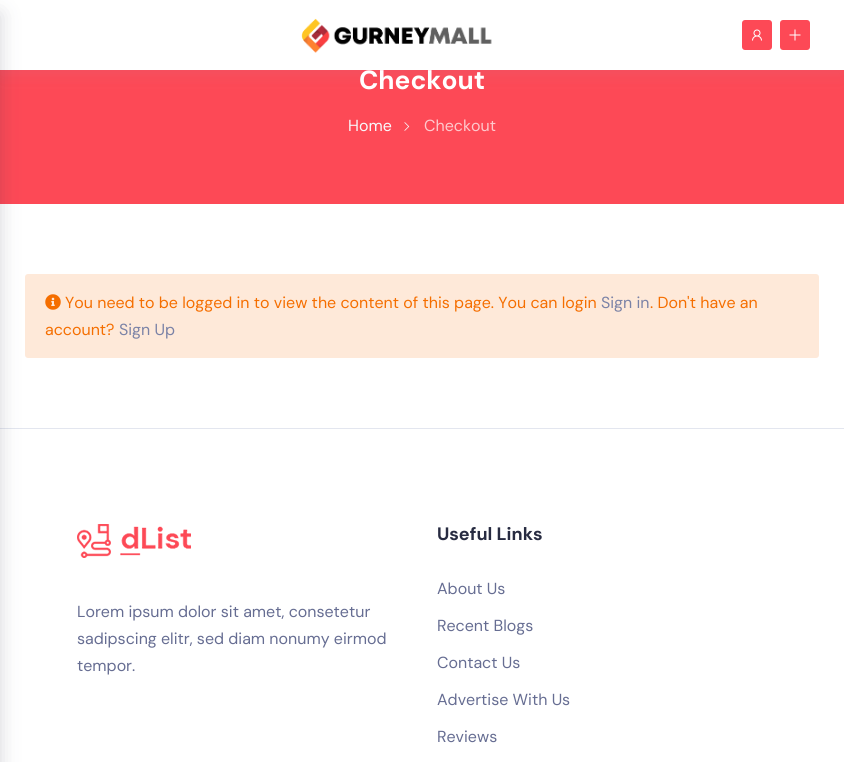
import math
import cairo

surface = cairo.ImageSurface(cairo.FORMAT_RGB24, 844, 762)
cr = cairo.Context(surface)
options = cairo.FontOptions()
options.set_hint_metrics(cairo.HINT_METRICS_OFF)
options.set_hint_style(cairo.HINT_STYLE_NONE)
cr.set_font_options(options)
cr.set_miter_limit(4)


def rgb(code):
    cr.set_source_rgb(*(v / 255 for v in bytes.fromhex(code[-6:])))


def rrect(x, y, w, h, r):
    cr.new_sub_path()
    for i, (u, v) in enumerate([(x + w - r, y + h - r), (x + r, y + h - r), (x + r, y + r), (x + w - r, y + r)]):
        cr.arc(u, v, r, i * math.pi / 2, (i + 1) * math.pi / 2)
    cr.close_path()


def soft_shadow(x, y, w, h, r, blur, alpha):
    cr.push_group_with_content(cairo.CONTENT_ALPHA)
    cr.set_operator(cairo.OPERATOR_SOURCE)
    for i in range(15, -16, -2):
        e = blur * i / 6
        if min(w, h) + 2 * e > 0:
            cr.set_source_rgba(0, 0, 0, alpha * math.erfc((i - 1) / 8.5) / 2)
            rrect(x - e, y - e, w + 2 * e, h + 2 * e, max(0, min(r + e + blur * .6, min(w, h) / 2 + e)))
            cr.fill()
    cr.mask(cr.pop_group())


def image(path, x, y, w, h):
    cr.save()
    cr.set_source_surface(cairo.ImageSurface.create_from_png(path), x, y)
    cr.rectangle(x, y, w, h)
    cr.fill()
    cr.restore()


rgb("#ffffff")
cr.paint()
rgb("#fd4956")
cr.rectangle(0, 70, 844, 134)
cr.fill()
rgb("#9299b8")
soft_shadow(0, 5, 844, 70, 0, 7.5, 0.1)
rgb("#ffffff")
cr.rectangle(0, 0, 844, 70)
cr.fill()
rgb("#fee9d9")
rrect(25, 274, 794, 84, 3)
cr.fill()
rgb("#e3e6ef")
cr.rectangle(0, 428, 844, 1)
cr.fill()
rgb("#272b41")
soft_shadow(-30, 14, 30, 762, 0, 10, 0.2)
image("img/1.png", 301, 18, 191, 35)
rgb("#fd4956")
rrect(742, 20, 30, 30, 3)
cr.fill()
image("img/2.png", 752, 29, 10, 12)
rrect(780, 20, 30, 30, 3)
cr.fill()
image("img/3.png", 789, 29, 12, 12)
image("img/4.png", 404, 122, 6, 9)
image("img/5.png", 45, 294, 16, 16)
image("img/6.png", 77, 524, 114, 34)
cr.select_font_face("DM Sans", cairo.FONT_SLANT_NORMAL, cairo.FONT_WEIGHT_BOLD)
cr.set_font_size(26.25)
rgb("#ffffff")
cr.move_to(359, 89)
cr.show_text("Checkout")
cr.select_font_face("DM Sans")
cr.set_font_size(16)
rgb("#f8f9fb")
cr.move_to(348, 131)
cr.show_text("Home")
rgb("#fec8cc")
cr.move_to(424, 131)
cr.show_text("Checkout")
rgb("#f56e00")
cr.move_to(65, 308)
cr.show_text("You need to be logged in to view the content of this page. You can login")
rgb("#7a82a6")
cr.move_to(601, 308)
cr.show_text("Sign in")
rgb("#f56e00")
cr.move_to(650, 308)
cr.show_text(". Don't have an")
cr.move_to(45, 335)
cr.show_text("account?")
rgb("#7a82a6")
cr.move_to(119, 335)
cr.show_text("Sign Up")
rgb("#666d92")
for x, y, s in [
    (77, 617, "Lorem ipsum dolor sit amet, consetetur"),
    (77, 644, "sadipscing elitr, sed diam nonumy eirmod"),
    (77, 671, "tempor."),
]:
    cr.move_to(x, y)
    cr.show_text(s)
cr.select_font_face("DM Sans", cairo.FONT_SLANT_NORMAL, cairo.FONT_WEIGHT_BOLD)
cr.set_font_size(18)
rgb("#272b41")
cr.move_to(437, 540)
cr.show_text("Useful Links")
cr.select_font_face("DM Sans")
cr.set_font_size(16)
rgb("#666d92")
for x, y, s in [
    (437, 594, "About Us"),
    (437, 631, "Recent Blogs"),
    (437, 668, "Contact Us"),
    (437, 705, "Advertise With Us"),
    (437, 742, "Reviews"),
]:
    cr.move_to(x, y)
    cr.show_text(s)
surface.write_to_png("page.png")
